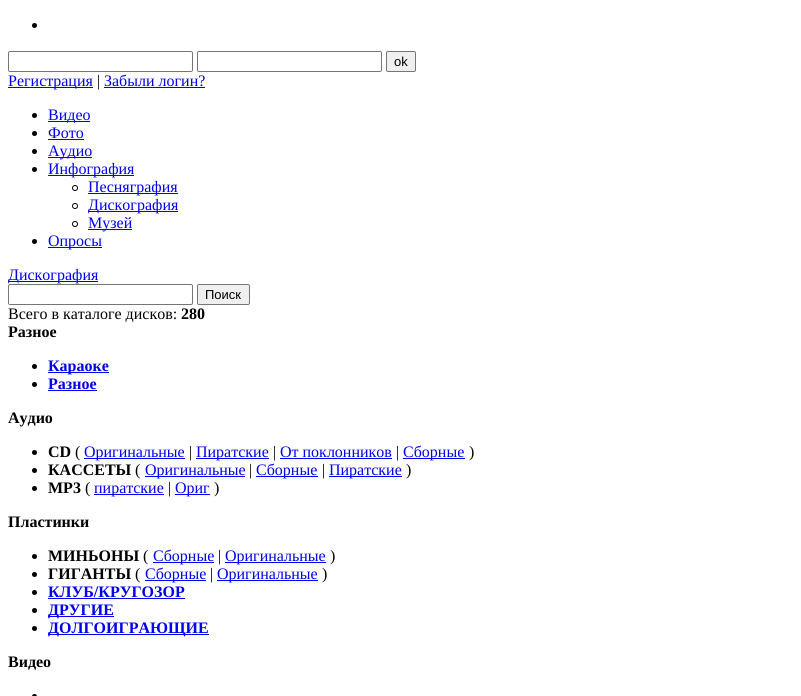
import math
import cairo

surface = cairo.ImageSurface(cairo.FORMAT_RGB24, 801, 696)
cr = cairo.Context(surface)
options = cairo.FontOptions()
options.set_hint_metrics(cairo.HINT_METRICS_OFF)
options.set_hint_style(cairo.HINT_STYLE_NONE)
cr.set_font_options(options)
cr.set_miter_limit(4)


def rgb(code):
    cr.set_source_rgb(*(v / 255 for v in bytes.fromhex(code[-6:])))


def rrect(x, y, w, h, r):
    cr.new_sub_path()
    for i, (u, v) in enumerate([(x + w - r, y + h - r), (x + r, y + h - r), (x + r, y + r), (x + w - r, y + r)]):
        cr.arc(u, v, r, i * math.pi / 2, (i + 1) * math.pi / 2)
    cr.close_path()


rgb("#ffffff")
cr.paint()
rgb("#000000")
cr.arc(34.5, 25.5, 2.5, 0, 2 * math.pi)
cr.fill()
rrect(8.5, 51.5, 184, 20, 1.5)
rgb("#767676")
cr.set_line_width(1)
cr.stroke()
rrect(197.5, 51.5, 184, 20, 1.5)
cr.stroke()
rgb("#efefef")
rrect(386.5, 51.5, 29, 20, 1.5)
cr.fill_preserve()
rgb("#767676")
cr.stroke()
rgb("#0000ee")
cr.rectangle(8, 87, 85, 1)
cr.fill()
cr.rectangle(104, 87, 101, 1)
cr.fill()
rgb("#000000")
cr.arc(34.5, 115.5, 2.5, 0, 2 * math.pi)
cr.fill()
rgb("#0000ee")
cr.rectangle(48, 121, 42, 1)
cr.fill()
rgb("#000000")
cr.arc(34.5, 133.5, 2.5, 0, 2 * math.pi)
cr.fill()
rgb("#0000ee")
cr.rectangle(48, 139, 36, 1)
cr.fill()
rgb("#000000")
cr.arc(34.5, 151.5, 2.5, 0, 2 * math.pi)
cr.fill()
rgb("#0000ee")
cr.rectangle(48, 157, 44, 1)
cr.fill()
rgb("#000000")
cr.arc(34.5, 169.5, 2.5, 0, 2 * math.pi)
cr.fill()
rgb("#0000ee")
cr.rectangle(48, 175, 86, 1)
cr.fill()
cr.arc(75, 188, 2.5, 0, 2 * math.pi)
rgb("#000000")
cr.stroke()
rgb("#0000ee")
cr.rectangle(88, 193, 90, 1)
cr.fill()
cr.arc(75, 206, 2.5, 0, 2 * math.pi)
rgb("#000000")
cr.stroke()
rgb("#0000ee")
cr.rectangle(88, 211, 90, 1)
cr.fill()
cr.arc(75, 224, 2.5, 0, 2 * math.pi)
rgb("#000000")
cr.stroke()
rgb("#0000ee")
cr.rectangle(88, 229, 44, 1)
cr.fill()
rgb("#000000")
cr.arc(34.5, 241.5, 2.5, 0, 2 * math.pi)
cr.fill()
rgb("#0000ee")
cr.rectangle(48, 247, 54, 1)
cr.fill()
cr.rectangle(8, 281, 90, 1)
cr.fill()
rrect(8.5, 284.5, 184, 20, 1.5)
rgb("#767676")
cr.stroke()
rgb("#efefef")
rrect(197.5, 284.5, 52, 20, 1.5)
cr.fill_preserve()
rgb("#767676")
cr.stroke()
rgb("#000000")
cr.arc(34.5, 366.5, 2.5, 0, 2 * math.pi)
cr.fill()
rgb("#0000ee")
cr.rectangle(48, 372, 61, 1)
cr.fill()
rgb("#000000")
cr.arc(34.5, 384.5, 2.5, 0, 2 * math.pi)
cr.fill()
rgb("#0000ee")
cr.rectangle(48, 390, 49, 1)
cr.fill()
rgb("#000000")
cr.arc(34.5, 452.5, 2.5, 0, 2 * math.pi)
cr.fill()
for x, y, w, h, color in [
    (84, 458, 101, 1, "#0000ee"),
    (196, 458, 73, 1, "#0000ee"),
    (280, 458, 112, 1, "#0000ee"),
    (403, 458, 62, 1, "#0000ee"),
]:
    rgb(color)
    cr.rectangle(x, y, w, h)
    cr.fill()
rgb("#000000")
cr.arc(34.5, 470.5, 2.5, 0, 2 * math.pi)
cr.fill()
for x, y, w, h, color in [
    (145, 476, 100, 1, "#0000ee"),
    (256, 476, 62, 1, "#0000ee"),
    (329, 476, 73, 1, "#0000ee"),
]:
    rgb(color)
    cr.rectangle(x, y, w, h)
    cr.fill()
rgb("#000000")
cr.arc(34.5, 488.5, 2.5, 0, 2 * math.pi)
cr.fill()
rgb("#0000ee")
cr.rectangle(94, 494, 70, 1)
cr.fill()
cr.rectangle(175, 494, 35, 1)
cr.fill()
rgb("#000000")
cr.arc(34.5, 556.5, 2.5, 0, 2 * math.pi)
cr.fill()
rgb("#0000ee")
cr.rectangle(153, 562, 61, 1)
cr.fill()
cr.rectangle(225, 562, 101, 1)
cr.fill()
rgb("#000000")
cr.arc(34.5, 574.5, 2.5, 0, 2 * math.pi)
cr.fill()
rgb("#0000ee")
cr.rectangle(145, 580, 61, 1)
cr.fill()
cr.rectangle(217, 580, 101, 1)
cr.fill()
rgb("#000000")
cr.arc(34.5, 592.5, 2.5, 0, 2 * math.pi)
cr.fill()
rgb("#0000ee")
cr.rectangle(48, 598, 137, 1)
cr.fill()
rgb("#000000")
cr.arc(34.5, 610.5, 2.5, 0, 2 * math.pi)
cr.fill()
rgb("#0000ee")
cr.rectangle(48, 616, 66, 1)
cr.fill()
rgb("#000000")
cr.arc(34.5, 628.5, 2.5, 0, 2 * math.pi)
cr.fill()
rgb("#0000ee")
cr.rectangle(48, 634, 161, 1)
cr.fill()
rgb("#000000")
cr.arc(34.5, 696.5, 2.5, 0, 2 * math.pi)
cr.fill()
cr.select_font_face("Liberation Sans")
cr.set_font_size(13)
cr.move_to(394, 66)
cr.show_text("ok")
cr.select_font_face("Liberation Serif")
cr.set_font_size(16)
rgb("#0000ee")
cr.move_to(8, 86)
cr.show_text("Регистрация")
rgb("#000000")
cr.move_to(97, 86)
cr.show_text("|")
rgb("#0000ee")
for x, y, s in [
    (104, 86, "Забыли логин?"),
    (48, 120, "Видео"),
    (48, 138, "Фото"),
    (48, 156, "Аудио"),
    (48, 174, "Инфография"),
    (88, 192, "Песняграфия"),
    (88, 210, "Дискография"),
    (88, 228, "Музей"),
    (48, 246, "Опросы"),
    (8, 280, "Дискография"),
]:
    cr.move_to(x, y)
    cr.show_text(s)
cr.select_font_face("Liberation Sans")
cr.set_font_size(13)
rgb("#000000")
cr.move_to(205, 299)
cr.show_text("Поиск")
cr.select_font_face("Liberation Serif")
cr.set_font_size(16)
cr.move_to(8, 319)
cr.show_text("Всего в каталоге дисков:")
cr.select_font_face("Liberation Serif", cairo.FONT_SLANT_NORMAL, cairo.FONT_WEIGHT_BOLD)
cr.move_to(181, 319)
cr.show_text("280")
cr.move_to(8, 337)
cr.show_text("Разное")
rgb("#0000ee")
cr.move_to(48, 371)
cr.show_text("Караоке")
cr.move_to(48, 389)
cr.show_text("Разное")
rgb("#000000")
cr.move_to(8, 423)
cr.show_text("Аудио")
cr.move_to(48, 457)
cr.show_text("CD")
cr.select_font_face("Liberation Serif")
cr.move_to(75, 457)
cr.show_text("(")
rgb("#0000ee")
cr.move_to(84, 457)
cr.show_text("Оригинальные")
rgb("#000000")
cr.move_to(189, 457)
cr.show_text("|")
rgb("#0000ee")
cr.move_to(196, 457)
cr.show_text("Пиратские")
rgb("#000000")
cr.move_to(273, 457)
cr.show_text("|")
rgb("#0000ee")
cr.move_to(280, 457)
cr.show_text("От поклонников")
rgb("#000000")
cr.move_to(396, 457)
cr.show_text("|")
rgb("#0000ee")
cr.move_to(403, 457)
cr.show_text("Сборные")
rgb("#000000")
cr.move_to(469, 457)
cr.show_text(")")
cr.select_font_face("Liberation Serif", cairo.FONT_SLANT_NORMAL, cairo.FONT_WEIGHT_BOLD)
cr.move_to(48, 475)
cr.show_text("КАССЕТЫ")
cr.select_font_face("Liberation Serif")
cr.move_to(135, 475)
cr.show_text("(")
rgb("#0000ee")
cr.move_to(145, 475)
cr.show_text("Оригинальные")
rgb("#000000")
cr.move_to(249, 475)
cr.show_text("|")
rgb("#0000ee")
cr.move_to(256, 475)
cr.show_text("Сборные")
rgb("#000000")
cr.move_to(322, 475)
cr.show_text("|")
rgb("#0000ee")
cr.move_to(329, 475)
cr.show_text("Пиратские")
rgb("#000000")
cr.move_to(406, 475)
cr.show_text(")")
cr.select_font_face("Liberation Serif", cairo.FONT_SLANT_NORMAL, cairo.FONT_WEIGHT_BOLD)
cr.move_to(48, 493)
cr.show_text("MP3")
cr.select_font_face("Liberation Serif")
cr.move_to(85, 493)
cr.show_text("(")
rgb("#0000ee")
cr.move_to(94, 493)
cr.show_text("пиратские")
rgb("#000000")
cr.move_to(168, 493)
cr.show_text("|")
rgb("#0000ee")
cr.move_to(175, 493)
cr.show_text("Ориг")
rgb("#000000")
cr.move_to(214, 493)
cr.show_text(")")
cr.select_font_face("Liberation Serif", cairo.FONT_SLANT_NORMAL, cairo.FONT_WEIGHT_BOLD)
cr.move_to(8, 527)
cr.show_text("Пластинки")
cr.move_to(48, 561)
cr.show_text("МИНЬОНЫ")
cr.select_font_face("Liberation Serif")
cr.move_to(143, 561)
cr.show_text("(")
rgb("#0000ee")
cr.move_to(153, 561)
cr.show_text("Сборные")
rgb("#000000")
cr.move_to(218, 561)
cr.show_text("|")
rgb("#0000ee")
cr.move_to(225, 561)
cr.show_text("Оригинальные")
rgb("#000000")
cr.move_to(330, 561)
cr.show_text(")")
cr.select_font_face("Liberation Serif", cairo.FONT_SLANT_NORMAL, cairo.FONT_WEIGHT_BOLD)
cr.move_to(48, 579)
cr.show_text("ГИГАНТЫ")
cr.select_font_face("Liberation Serif")
cr.move_to(135, 579)
cr.show_text("(")
rgb("#0000ee")
cr.move_to(145, 579)
cr.show_text("Сборные")
rgb("#000000")
cr.move_to(210, 579)
cr.show_text("|")
rgb("#0000ee")
cr.move_to(217, 579)
cr.show_text("Оригинальные")
rgb("#000000")
cr.move_to(322, 579)
cr.show_text(")")
cr.select_font_face("Liberation Serif", cairo.FONT_SLANT_NORMAL, cairo.FONT_WEIGHT_BOLD)
rgb("#0000ee")
for x, y, s in [
    (48, 597, "КЛУБ/КРУГОЗОР"),
    (48, 615, "ДРУГИЕ"),
    (48, 633, "ДОЛГОИГРАЮЩИЕ"),
]:
    cr.move_to(x, y)
    cr.show_text(s)
rgb("#000000")
cr.move_to(8, 667)
cr.show_text("Видео")
surface.write_to_png("page.png")
